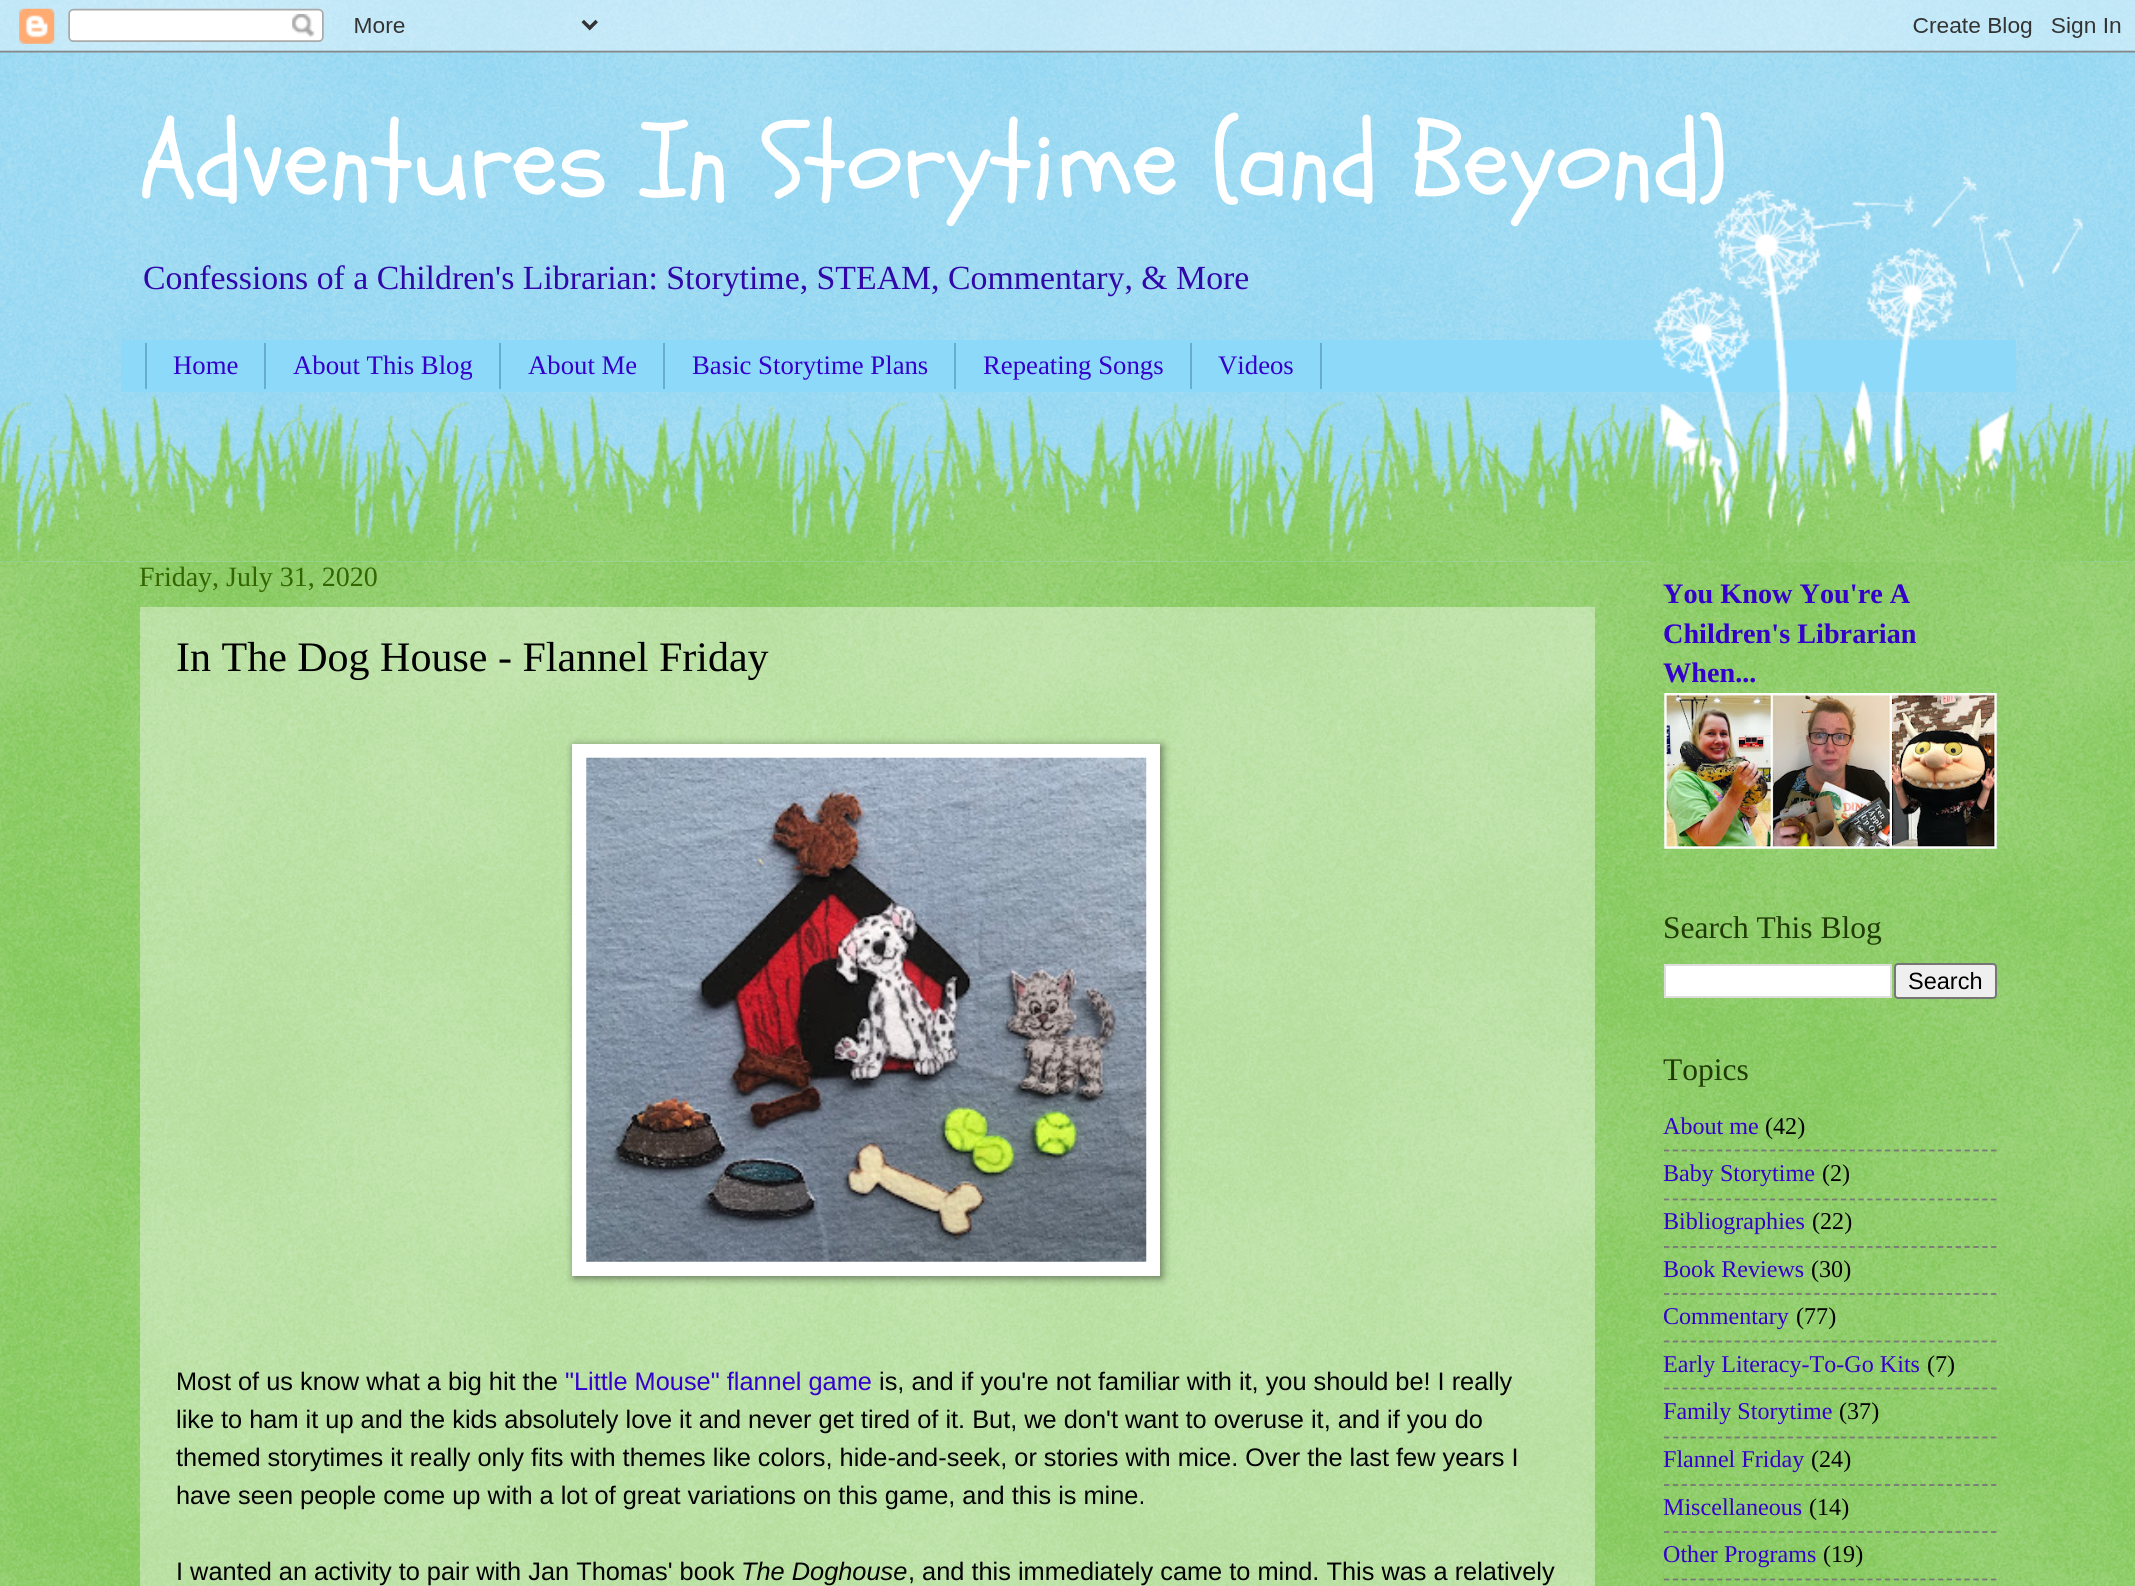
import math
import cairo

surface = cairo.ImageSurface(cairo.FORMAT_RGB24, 2135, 1586)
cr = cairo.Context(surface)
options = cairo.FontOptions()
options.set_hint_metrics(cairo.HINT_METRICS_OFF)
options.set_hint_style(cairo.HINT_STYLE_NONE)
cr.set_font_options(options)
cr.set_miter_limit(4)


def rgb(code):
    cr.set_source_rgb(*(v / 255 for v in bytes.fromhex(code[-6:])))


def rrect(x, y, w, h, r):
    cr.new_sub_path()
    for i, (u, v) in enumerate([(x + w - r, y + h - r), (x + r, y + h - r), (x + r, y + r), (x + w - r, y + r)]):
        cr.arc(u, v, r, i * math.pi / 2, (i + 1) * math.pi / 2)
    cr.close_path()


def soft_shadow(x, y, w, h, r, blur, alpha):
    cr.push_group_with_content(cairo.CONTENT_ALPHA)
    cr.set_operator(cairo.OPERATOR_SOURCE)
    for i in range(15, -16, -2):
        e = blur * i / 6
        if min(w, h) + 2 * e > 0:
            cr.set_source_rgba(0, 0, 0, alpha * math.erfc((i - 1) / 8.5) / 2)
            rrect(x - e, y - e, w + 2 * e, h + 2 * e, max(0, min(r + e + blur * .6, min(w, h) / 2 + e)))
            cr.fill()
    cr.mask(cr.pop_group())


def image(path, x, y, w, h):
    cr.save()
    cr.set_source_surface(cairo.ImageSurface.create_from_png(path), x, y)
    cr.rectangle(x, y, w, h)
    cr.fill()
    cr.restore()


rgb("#77ccee")
cr.paint()
image("img/1.png", 0, 0, 2135, 562)
image("img/2.png", 0, 0, 2135, 53)
for x, y, w, h, color in [
    (121, 340, 1895, 52, "#8cd9fa"),
    (264, 343, 2, 46, "#67aecc"),
    (145, 343, 2, 46, "#67aecc"),
    (499, 343, 2, 46, "#67aecc"),
    (663, 343, 2, 46, "#67aecc"),
    (954, 343, 2, 46, "#67aecc"),
    (1190, 343, 2, 46, "#67aecc"),
    (1320, 343, 2, 46, "#67aecc"),
    (0, 562, 2135, 1024, "#66bb33"),
]:
    rgb(color)
    cr.rectangle(x, y, w, h)
    cr.fill()
image("img/3.png", 0, 561, 2135, 1025)
cr.set_source_rgba(1, 1, 1, 0.4)
cr.rectangle(140, 607, 1455, 979)
cr.fill()
rgb("#000000")
soft_shadow(574, 746, 588, 532, 0, 4.5, 0.5)
rgb("#ffffff")
cr.rectangle(572, 744, 588, 532)
cr.fill()
image("img/6.png", 586, 757, 561, 505)
image("img/7.png", 1664, 693, 333, 156)
cr.rectangle(1665, 965, 226, 32)
cr.fill_preserve()
rgb("#dddddd")
cr.stroke()
rgb("#efefef")
rrect(1895, 964, 101, 34, 3)
cr.fill_preserve()
rgb("#767676")
cr.stroke()
cr.new_path()
cr.move_to(1664, 1150.5)
cr.line_to(1997, 1150.5)
rgb("#777777")
cr.set_line_width(1.8)
cr.set_dash([5.25, 3.59])
cr.stroke()
cr.new_path()
cr.move_to(1664, 1199.5)
cr.line_to(1997, 1199.5)
cr.stroke()
cr.new_path()
cr.move_to(1664, 1247)
cr.line_to(1997, 1247)
cr.stroke()
cr.new_path()
cr.move_to(1664, 1294)
cr.line_to(1997, 1294)
cr.stroke()
cr.new_path()
cr.move_to(1664, 1341.5)
cr.line_to(1997, 1341.5)
cr.stroke()
cr.new_path()
cr.move_to(1664, 1388.5)
cr.line_to(1997, 1388.5)
cr.stroke()
cr.new_path()
cr.move_to(1664, 1437.5)
cr.line_to(1997, 1437.5)
cr.stroke()
cr.new_path()
cr.move_to(1664, 1485)
cr.line_to(1997, 1485)
cr.stroke()
cr.new_path()
cr.move_to(1664, 1532)
cr.line_to(1997, 1532)
cr.stroke()
cr.new_path()
cr.move_to(1664, 1579.5)
cr.line_to(1997, 1579.5)
cr.stroke()
cr.select_font_face("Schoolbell")
cr.set_font_size(105)
rgb("#ffffff")
cr.move_to(139, 196)
cr.show_text("Adventures In Storytime (and Beyond)")
cr.select_font_face("Liberation Serif")
cr.set_font_size(33.8)
rgb("#3008aa")
cr.move_to(143, 289)
cr.show_text("Confessions of a Children's Librarian: Storytime, STEAM, Commentary, & More")
cr.set_font_size(26.75)
rgb("#3300cc")
for x, y, s in [
    (173, 374, "Home"),
    (293, 374, "About This Blog"),
    (528, 374, "About Me"),
    (692, 374, "Basic Storytime Plans"),
    (983, 374, "Repeating Songs"),
    (1218, 374, "Videos"),
]:
    cr.move_to(x, y)
    cr.show_text(s)
image("img/4.png", 1645, 176, 438, 386)
image("img/5.png", 0, 393, 2135, 169)
cr.set_font_size(28)
rgb("#336600")
cr.move_to(139, 586)
cr.show_text("Friday, July 31, 2020")
cr.set_font_size(42)
rgb("#000000")
cr.move_to(176, 671)
cr.show_text("In The Dog House - Flannel Friday")
cr.select_font_face("Liberation Sans")
cr.set_font_size(25.35)
cr.move_to(176, 1390)
cr.show_text("Most of us know what a big hit the")
rgb("#3300cc")
cr.move_to(565, 1390)
cr.show_text("\"Little Mouse\" flannel game")
rgb("#000000")
for x, y, s in [
    (879, 1390, "is, and if you're not familiar with it, you should be! I really"),
    (176, 1428, "like to ham it up and the kids absolutely love it and never get tired of it. But, we don't want to overuse it, and if you do"),
    (176, 1466, "themed storytimes it really only fits with themes like colors, hide-and-seek, or stories with mice. Over the last few years I"),
    (176, 1504, "have seen people come up with a lot of great variations on this game, and this is mine."),
    (176, 1580, "I wanted an activity to pair with Jan Thomas' book"),
]:
    cr.move_to(x, y)
    cr.show_text(s)
cr.select_font_face("Liberation Sans", cairo.FONT_SLANT_ITALIC)
cr.move_to(741, 1580)
cr.show_text("The Doghouse")
cr.select_font_face("Liberation Sans")
cr.move_to(908, 1580)
cr.show_text(", and this immediately came to mind. This was a relatively")
cr.select_font_face("Liberation Serif", cairo.FONT_SLANT_NORMAL, cairo.FONT_WEIGHT_BOLD)
cr.set_font_size(28.25)
rgb("#3300cc")
for x, y, s in [
    (1663, 603, "You Know You're A"),
    (1663, 643, "Children's Librarian"),
    (1663, 682, "When..."),
]:
    cr.move_to(x, y)
    cr.show_text(s)
cr.select_font_face("Liberation Serif")
cr.set_font_size(31.5)
rgb("#1f3b03")
cr.move_to(1663, 938)
cr.show_text("Search This Blog")
cr.select_font_face("Liberation Sans")
cr.set_font_size(23.5)
rgb("#000000")
cr.move_to(1908, 989)
cr.show_text("Search")
cr.select_font_face("Liberation Serif")
cr.set_font_size(31.5)
rgb("#1f3b03")
cr.move_to(1663, 1080)
cr.show_text("Topics")
cr.set_font_size(24.1)
rgb("#3300cc")
cr.move_to(1663, 1134)
cr.show_text("About me")
rgb("#000000")
cr.move_to(1765, 1134)
cr.show_text("(42)")
rgb("#3300cc")
cr.move_to(1663, 1181)
cr.show_text("Baby Storytime")
rgb("#000000")
cr.move_to(1822, 1181)
cr.show_text("(2)")
rgb("#3300cc")
cr.move_to(1663, 1229)
cr.show_text("Bibliographies")
rgb("#000000")
cr.move_to(1812, 1229)
cr.show_text("(22)")
rgb("#3300cc")
cr.move_to(1663, 1277)
cr.show_text("Book Reviews")
rgb("#000000")
cr.move_to(1811, 1277)
cr.show_text("(30)")
rgb("#3300cc")
cr.move_to(1663, 1324)
cr.show_text("Commentary")
rgb("#000000")
cr.move_to(1796, 1324)
cr.show_text("(77)")
rgb("#3300cc")
cr.move_to(1663, 1372)
cr.show_text("Early Literacy-To-Go Kits")
rgb("#000000")
cr.move_to(1927, 1372)
cr.show_text("(7)")
rgb("#3300cc")
cr.move_to(1663, 1419)
cr.show_text("Family Storytime")
rgb("#000000")
cr.move_to(1839, 1419)
cr.show_text("(37)")
rgb("#3300cc")
cr.move_to(1663, 1467)
cr.show_text("Flannel Friday")
rgb("#000000")
cr.move_to(1811, 1467)
cr.show_text("(24)")
rgb("#3300cc")
cr.move_to(1663, 1515)
cr.show_text("Miscellaneous")
rgb("#000000")
cr.move_to(1809, 1515)
cr.show_text("(14)")
rgb("#3300cc")
cr.move_to(1663, 1562)
cr.show_text("Other Programs")
rgb("#000000")
cr.move_to(1823, 1562)
cr.show_text("(19)")
surface.write_to_png("page.png")
